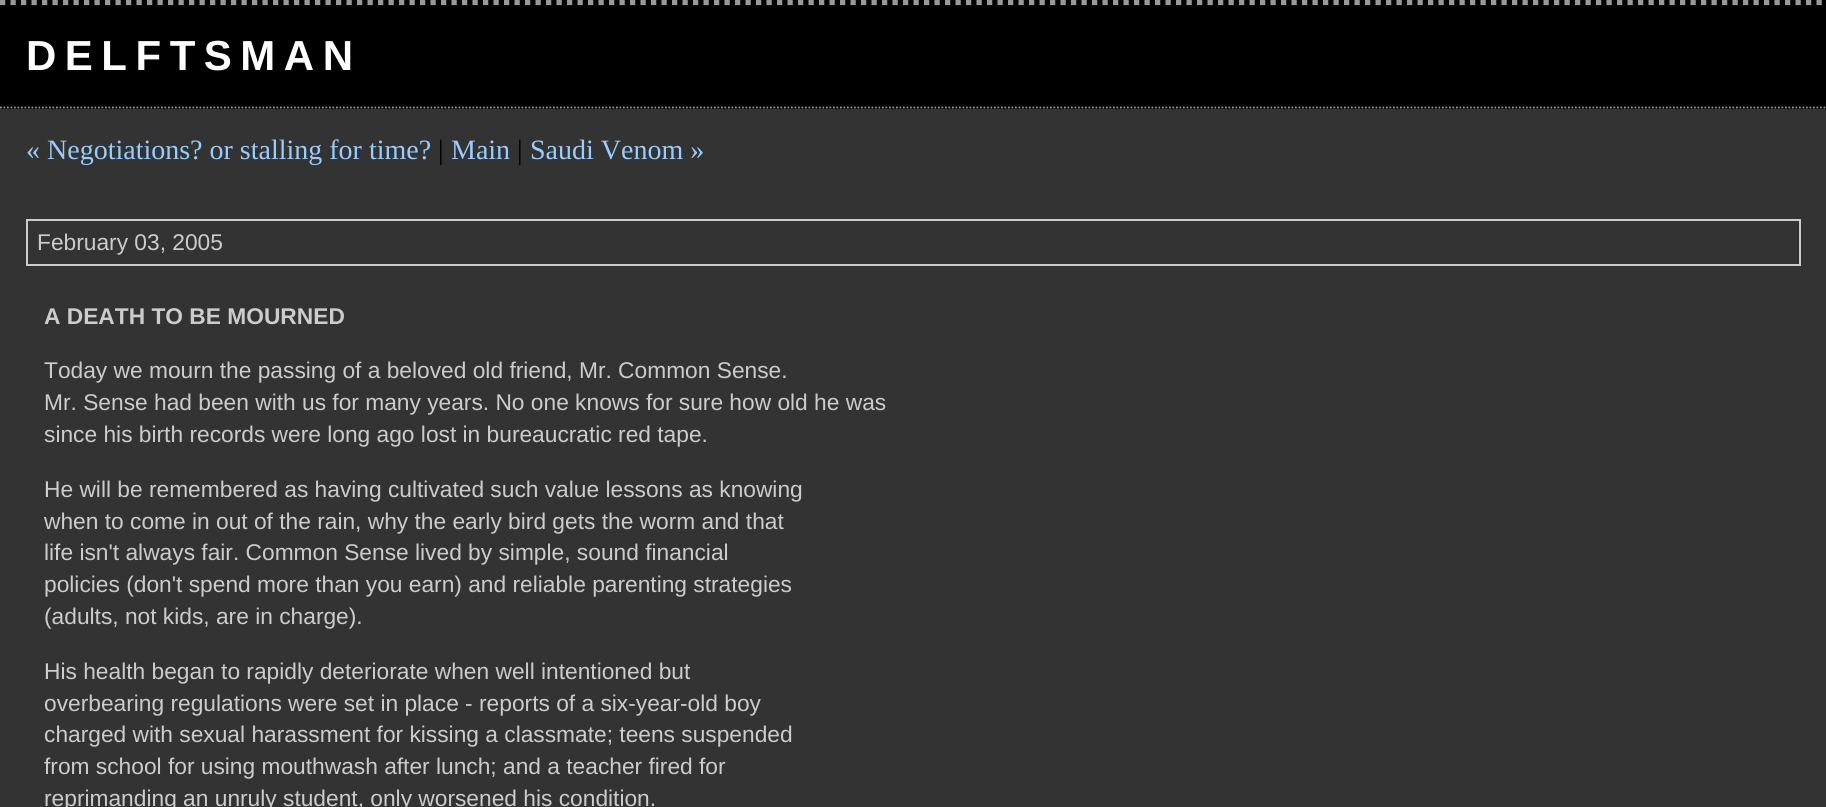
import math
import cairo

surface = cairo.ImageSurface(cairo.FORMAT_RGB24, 1826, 807)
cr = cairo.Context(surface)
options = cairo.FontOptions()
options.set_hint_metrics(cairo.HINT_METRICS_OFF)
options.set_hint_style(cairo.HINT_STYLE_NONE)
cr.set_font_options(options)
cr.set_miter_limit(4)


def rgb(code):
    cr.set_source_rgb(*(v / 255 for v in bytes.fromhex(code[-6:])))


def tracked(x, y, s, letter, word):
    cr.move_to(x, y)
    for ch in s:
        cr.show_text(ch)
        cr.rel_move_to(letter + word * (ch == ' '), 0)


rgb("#333333")
cr.paint()
rgb("#000000")
cr.rectangle(0, 0, 1826, 109)
cr.fill()
cr.new_path()
cr.move_to(0, 2.5)
cr.line_to(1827, 2.5)
rgb("#999999")
cr.set_line_width(5.2)
cr.set_dash([5.25, 5.25])
cr.stroke()
cr.new_path()
cr.move_to(0, 107.5)
cr.line_to(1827, 107.5)
cr.set_line_width(1.8)
cr.set_dash([1.75, 1.75])
cr.stroke()
cr.rectangle(27, 220, 1773, 45)
rgb("#cccccc")
cr.set_line_width(2)
cr.set_dash([])
cr.stroke()
cr.select_font_face("Liberation Sans", cairo.FONT_SLANT_NORMAL, cairo.FONT_WEIGHT_BOLD)
cr.set_font_size(42)
rgb("#ffffff")
tracked(26, 70, "DELFTSMAN", 8.5, 0)
cr.select_font_face("Liberation Serif")
cr.set_font_size(28)
rgb("#99ccff")
cr.move_to(26, 159)
cr.show_text("« Negotiations? or stalling for time?")
rgb("#000000")
cr.move_to(438, 159)
cr.show_text("|")
rgb("#99ccff")
cr.move_to(451, 159)
cr.show_text("Main")
rgb("#000000")
cr.move_to(517, 159)
cr.show_text("|")
rgb("#99ccff")
cr.move_to(530, 159)
cr.show_text("Saudi Venom »")
cr.select_font_face("Liberation Sans")
cr.set_font_size(22.75)
rgb("#cccccc")
cr.move_to(37, 250)
cr.show_text("February 03, 2005")
cr.select_font_face("Liberation Sans", cairo.FONT_SLANT_NORMAL, cairo.FONT_WEIGHT_BOLD)
cr.move_to(44, 324)
cr.show_text("A DEATH TO BE MOURNED")
cr.select_font_face("Liberation Sans")
for x, y, s in [
    (44, 378, "Today we mourn the passing of a beloved old friend, Mr. Common Sense."),
    (44, 410, "Mr. Sense had been with us for many years. No one knows for sure how old he was"),
    (44, 442, "since his birth records were long ago lost in bureaucratic red tape."),
    (44, 497, "He will be remembered as having cultivated such value lessons as knowing"),
    (44, 529, "when to come in out of the rain, why the early bird gets the worm and that"),
    (44, 560, "life isn't always fair. Common Sense lived by simple, sound financial"),
    (44, 592, "policies (don't spend more than you earn) and reliable parenting strategies"),
    (44, 624, "(adults, not kids, are in charge)."),
    (44, 679, "His health began to rapidly deteriorate when well intentioned but"),
    (44, 711, "overbearing regulations were set in place - reports of a six-year-old boy"),
    (44, 742, "charged with sexual harassment for kissing a classmate; teens suspended"),
    (44, 774, "from school for using mouthwash after lunch; and a teacher fired for"),
    (44, 806, "reprimanding an unruly student, only worsened his condition."),
]:
    cr.move_to(x, y)
    cr.show_text(s)
surface.write_to_png("page.png")
